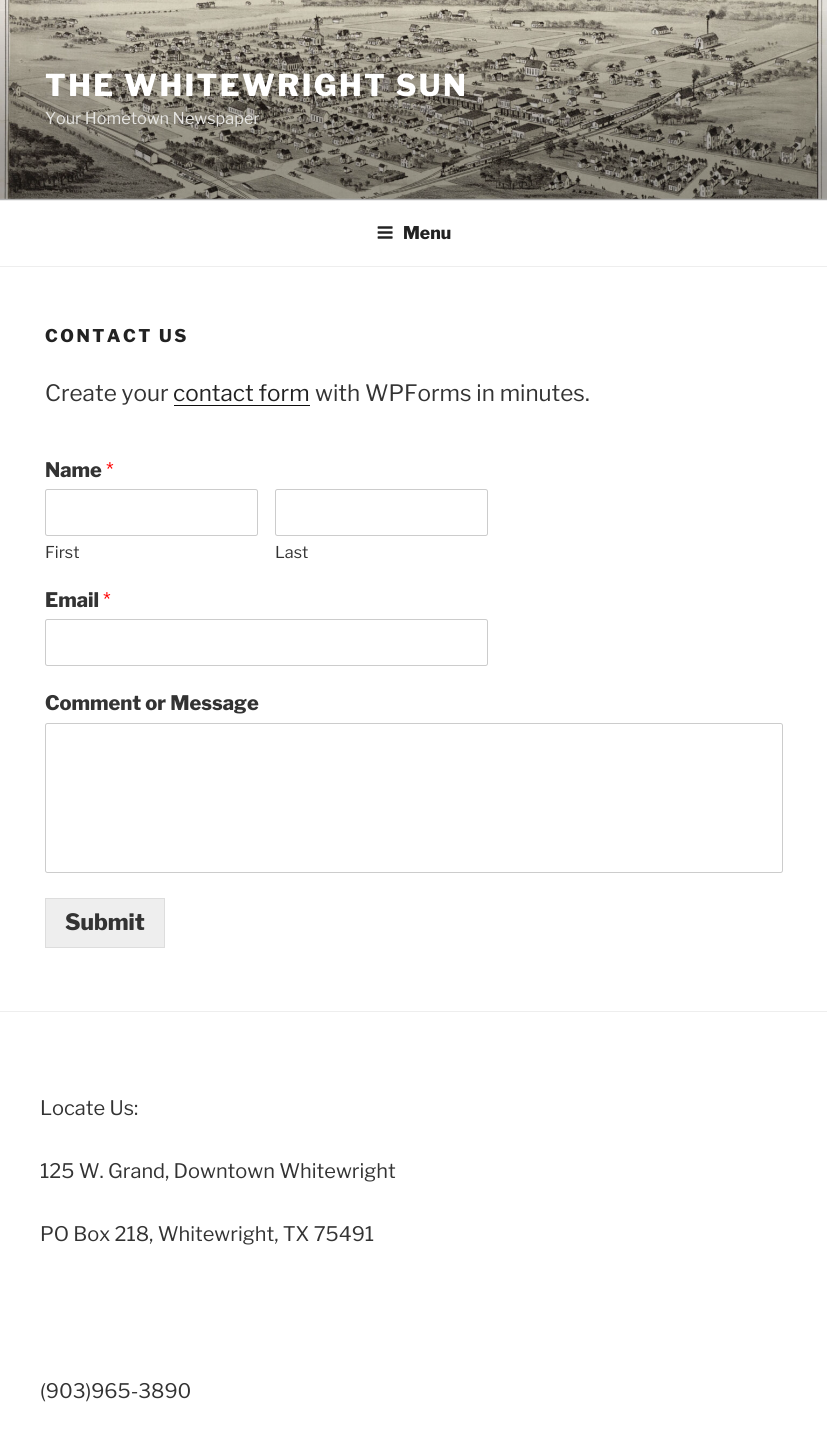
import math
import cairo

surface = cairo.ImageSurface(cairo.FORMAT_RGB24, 827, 1446)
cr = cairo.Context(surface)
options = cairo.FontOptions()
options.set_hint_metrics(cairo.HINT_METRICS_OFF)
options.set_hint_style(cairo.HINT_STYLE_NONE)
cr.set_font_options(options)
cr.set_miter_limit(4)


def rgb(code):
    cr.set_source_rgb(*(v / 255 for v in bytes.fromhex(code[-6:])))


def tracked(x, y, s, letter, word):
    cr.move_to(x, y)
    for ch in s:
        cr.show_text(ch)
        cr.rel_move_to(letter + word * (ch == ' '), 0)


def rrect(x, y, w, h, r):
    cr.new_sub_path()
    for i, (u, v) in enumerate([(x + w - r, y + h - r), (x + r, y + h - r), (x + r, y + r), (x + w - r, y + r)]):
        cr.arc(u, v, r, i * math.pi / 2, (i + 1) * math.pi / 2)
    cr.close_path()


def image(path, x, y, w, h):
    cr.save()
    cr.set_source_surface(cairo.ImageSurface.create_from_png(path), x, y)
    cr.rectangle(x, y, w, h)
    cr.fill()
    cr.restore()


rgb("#ffffff")
cr.paint()
rgb("#fafafa")
cr.rectangle(0, 198, 827, 2)
cr.fill()
image("img/1.png", 0, 0, 827, 199)
gradient = cairo.LinearGradient(414, 0, 414, 200)
gradient.add_color_stop_rgba(0, 0, 0, 0, 0)
gradient.add_color_stop_rgba(0.75, 0, 0, 0, 0.3)
gradient.add_color_stop_rgba(1, 0, 0, 0, 0.3)
cr.set_source(gradient)
cr.rectangle(0, 11, 827, 189)
cr.fill()
rgb("#eeeeee")
cr.rectangle(0, 200, 827, 1)
cr.fill()
cr.rectangle(0, 266, 827, 1)
cr.fill()
image("img/2.png", 377, 226, 16, 13)
rgb("#0f0f0f")
cr.rectangle(174, 405, 136, 1)
cr.fill()
rrect(45.5, 489.5, 212, 46, 2)
rgb("#cccccc")
cr.set_line_width(1)
cr.stroke()
rrect(275.5, 489.5, 212, 46, 2)
cr.stroke()
rrect(45.5, 619.5, 442, 46, 2)
cr.stroke()
rrect(45.5, 723.5, 737, 149, 2)
cr.stroke()
rgb("#eeeeee")
cr.rectangle(45.5, 898.5, 119, 49)
cr.fill_preserve()
rgb("#dddddd")
cr.stroke()
rgb("#eeeeee")
cr.rectangle(0, 1011, 827, 1)
cr.fill()
cr.select_font_face("Libre Franklin ExtraBold")
cr.set_font_size(30)
rgb("#ffffff")
tracked(45, 96, "THE WHITEWRIGHT SUN", 2.4, 0)
cr.select_font_face("Libre Franklin")
cr.set_font_size(16.25)
rgb("#e6e5e2")
cr.move_to(45, 124)
cr.show_text("Your Hometown Newspaper")
cr.select_font_face("Libre Franklin ExtraBold")
cr.set_font_size(17.5)
rgb("#222222")
cr.move_to(403, 239)
cr.show_text("Menu")
tracked(45, 342, "CONTACT US", 2.5, 0)
cr.select_font_face("Libre Franklin")
cr.set_font_size(22.5)
rgb("#333333")
cr.move_to(45, 401)
cr.show_text("Create your")
rgb("#222222")
cr.move_to(173, 401)
cr.show_text("contact form")
rgb("#333333")
cr.move_to(315, 401)
cr.show_text("with WPForms in minutes.")
cr.select_font_face("Libre Franklin ExtraBold")
cr.set_font_size(20)
cr.move_to(45, 477)
cr.show_text("Name")
cr.select_font_face("Libre Franklin")
rgb("#ff0000")
cr.move_to(106, 477)
cr.show_text("*")
cr.set_font_size(16.25)
rgb("#333333")
cr.move_to(45, 558)
cr.show_text("First")
cr.move_to(275, 558)
cr.show_text("Last")
cr.select_font_face("Libre Franklin ExtraBold")
cr.set_font_size(20)
cr.move_to(45, 607)
cr.show_text("Email")
cr.select_font_face("Libre Franklin")
rgb("#ff0000")
cr.move_to(103, 607)
cr.show_text("*")
cr.select_font_face("Libre Franklin ExtraBold")
rgb("#333333")
cr.move_to(45, 710)
cr.show_text("Comment or Message")
cr.set_font_size(22.5)
cr.move_to(65, 930)
cr.show_text("Submit")
cr.select_font_face("Libre Franklin")
cr.set_font_size(20)
for x, y, s in [
    (40, 1115, "Locate Us:"),
    (40, 1178, "125 W. Grand, Downtown Whitewright"),
    (40, 1241, "PO Box 218, Whitewright, TX 75491"),
    (40, 1398, "(903)965-3890"),
]:
    cr.move_to(x, y)
    cr.show_text(s)
surface.write_to_png("page.png")
